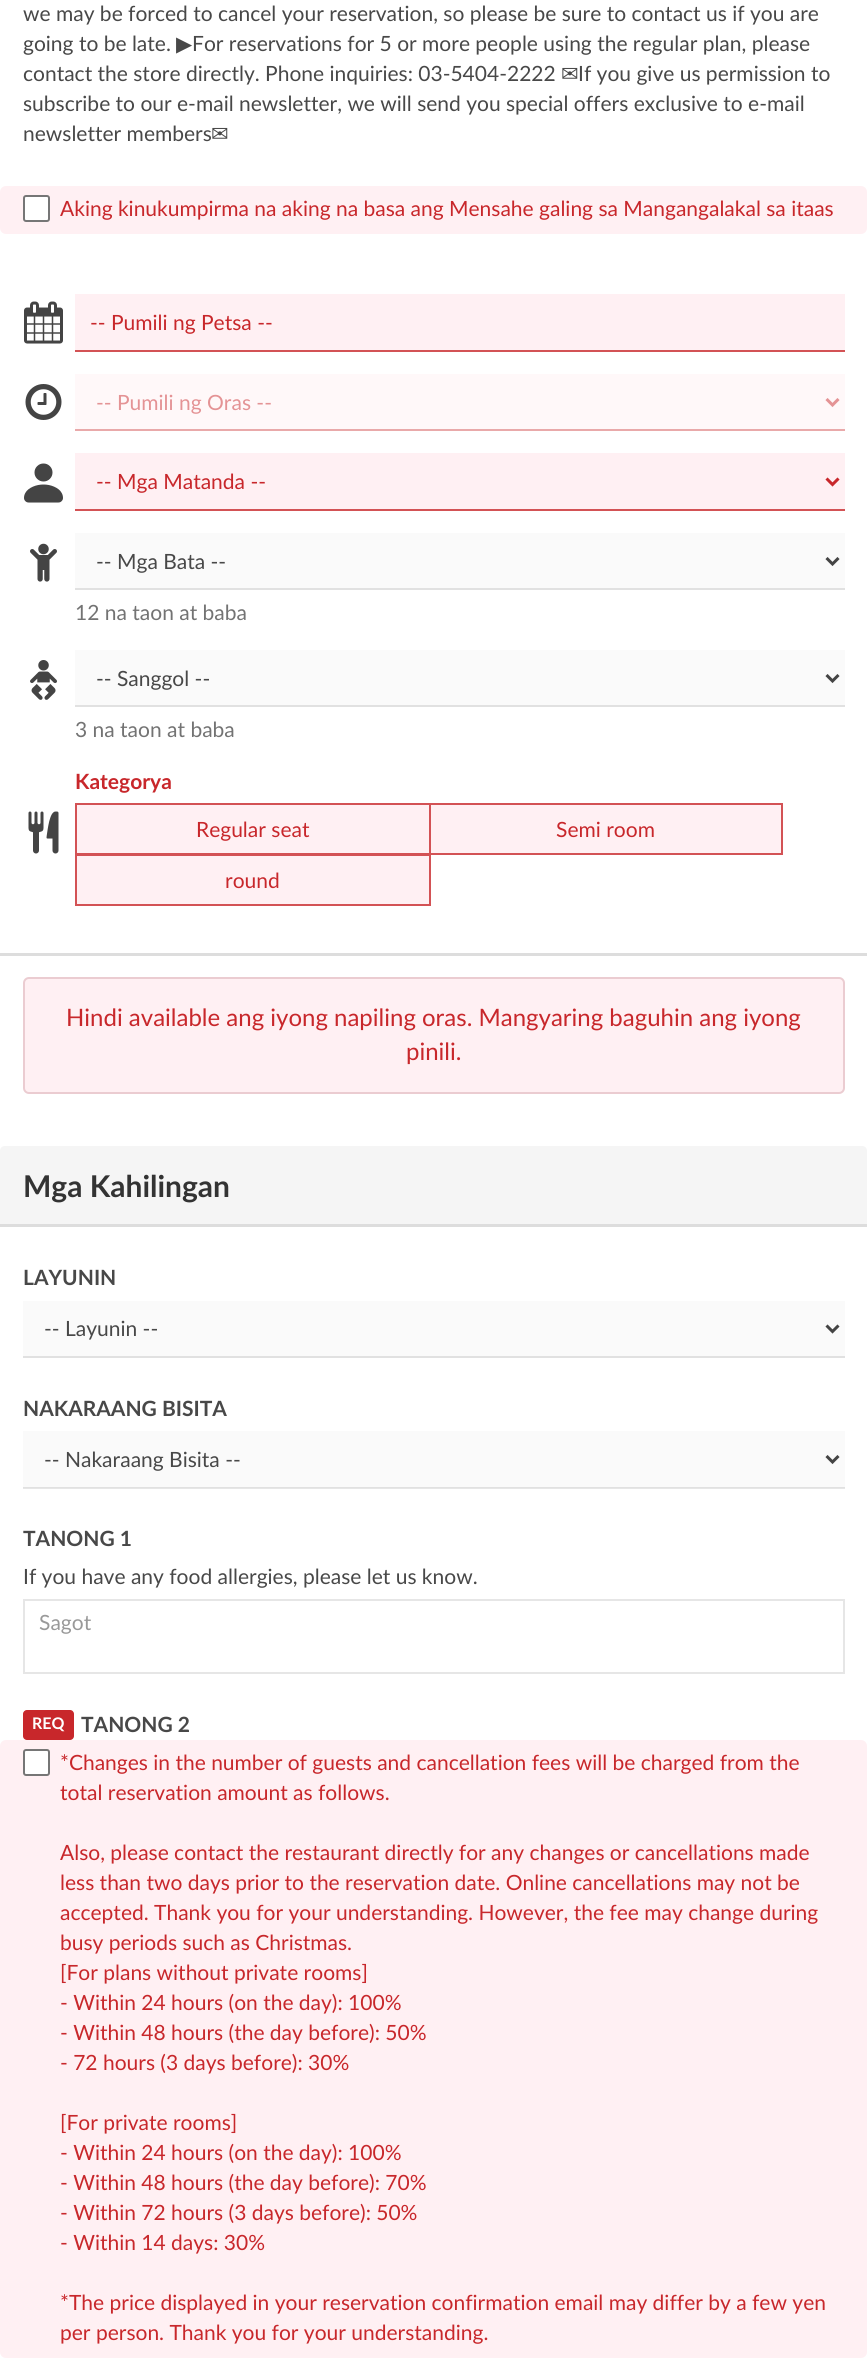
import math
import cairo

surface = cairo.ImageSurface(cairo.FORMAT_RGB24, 867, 2370)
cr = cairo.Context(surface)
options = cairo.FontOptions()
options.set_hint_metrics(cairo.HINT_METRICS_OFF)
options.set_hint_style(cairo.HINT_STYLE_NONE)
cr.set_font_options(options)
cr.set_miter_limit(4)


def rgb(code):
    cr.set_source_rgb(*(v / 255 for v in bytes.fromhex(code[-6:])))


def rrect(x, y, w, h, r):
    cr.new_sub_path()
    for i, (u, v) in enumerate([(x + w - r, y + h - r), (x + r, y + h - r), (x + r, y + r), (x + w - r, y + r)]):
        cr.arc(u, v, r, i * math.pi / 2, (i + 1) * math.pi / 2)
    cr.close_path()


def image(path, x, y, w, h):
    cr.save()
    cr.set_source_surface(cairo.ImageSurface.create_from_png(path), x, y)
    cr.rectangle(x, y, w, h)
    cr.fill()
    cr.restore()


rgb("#ffffff")
cr.paint()
rgb("#e6e6e6")
cr.rectangle(23, 1488, 822, 1)
cr.fill()
rgb("#fff0f3")
rrect(0, 186, 867, 48, 6)
cr.fill()
rgb("#ffffff")
rrect(24, 196, 25, 25, 2)
cr.fill_preserve()
rgb("#767676")
cr.stroke()
image("img/1.png", 24, 301, 39, 43)
rgb("#fff0f3")
cr.rectangle(75, 294, 770, 56)
cr.fill()
rgb("#d35255")
cr.rectangle(75, 350, 770, 2)
cr.fill()
image("img/2.png", 25, 384, 37, 36)
rgb("#fff8f9")
cr.rectangle(75, 374, 770, 55)
cr.fill()
rgb("#e9a9aa")
cr.rectangle(75, 429, 770, 2)
cr.fill()
cr.new_path()
cr.move_to(826.5, 399)
cr.line_to(832.5, 405)
cr.line_to(838.5, 399)
rgb("#e49395")
cr.set_line_width(3)
cr.stroke()
image("img/3.png", 24, 463, 39, 40)
rgb("#fff0f3")
cr.rectangle(75, 453, 770, 56)
cr.fill()
rgb("#d35255")
cr.rectangle(75, 509, 770, 2)
cr.fill()
cr.new_path()
cr.move_to(826.5, 478.5)
cr.line_to(832.5, 484.5)
cr.line_to(838.5, 478.5)
rgb("#c8272b")
cr.stroke()
image("img/4.png", 30, 543, 27, 39)
rgb("#fafafa")
cr.rectangle(75, 533, 770, 55)
cr.fill()
rgb("#e1e1e1")
cr.rectangle(75, 588, 770, 2)
cr.fill()
cr.new_path()
cr.move_to(826.5, 558)
cr.line_to(832.5, 564)
cr.line_to(838.5, 558)
rgb("#444444")
cr.stroke()
image("img/5.png", 30, 660, 27, 40)
rgb("#fafafa")
cr.rectangle(75, 650, 770, 55)
cr.fill()
rgb("#e1e1e1")
cr.rectangle(75, 705, 770, 2)
cr.fill()
cr.new_path()
cr.move_to(826.5, 675)
cr.line_to(832.5, 681)
cr.line_to(838.5, 675)
rgb("#444444")
cr.stroke()
image("img/6.png", 28, 811, 31, 43)
rgb("#fff0f3")
cr.rectangle(76, 804, 354, 50)
cr.fill_preserve()
rgb("#d35255")
cr.set_line_width(2)
cr.stroke()
rgb("#fff0f3")
cr.rectangle(430, 804, 352, 50)
cr.fill_preserve()
rgb("#d35255")
cr.stroke()
rgb("#fff0f3")
cr.rectangle(76, 855, 354, 50)
cr.fill_preserve()
rgb("#d35255")
cr.stroke()
rgb("#dddddd")
cr.rectangle(0, 953, 867, 3)
cr.fill()
rgb("#fff0f3")
rrect(24, 978, 820, 115, 5)
cr.fill_preserve()
rgb("#ebccd1")
cr.stroke()
rgb("#f5f5f5")
cr.new_path()
cr.move_to(5, 1146)
cr.line_to(862, 1146)
cr.curve_to(865, 1146, 867, 1148, 867, 1151)
cr.line_to(867, 1227)
cr.line_to(0, 1227)
cr.line_to(0, 1151)
cr.curve_to(0, 1148, 2, 1146, 5, 1146)
cr.close_path()
cr.fill()
for x, y, w, h, color in [
    (0, 1224, 867, 3, "#dddddd"),
    (23, 1301, 822, 55, "#fafafa"),
    (23, 1356, 822, 2, "#e1e1e1"),
]:
    rgb(color)
    cr.rectangle(x, y, w, h)
    cr.fill()
cr.new_path()
cr.move_to(826.5, 1325.5)
cr.line_to(832.5, 1331.5)
cr.line_to(838.5, 1325.5)
rgb("#444444")
cr.set_line_width(3)
cr.stroke()
rgb("#fafafa")
cr.rectangle(23, 1431, 822, 56)
cr.fill()
rgb("#e1e1e1")
cr.rectangle(23, 1487, 822, 1)
cr.fill()
cr.new_path()
cr.move_to(826.5, 1456)
cr.line_to(832.5, 1462)
cr.line_to(838.5, 1456)
rgb("#444444")
cr.stroke()
cr.rectangle(24, 1600, 820, 73)
rgb("#e6e6e6")
cr.set_line_width(2)
cr.stroke()
rgb("#c8272b")
rrect(23, 1710, 51, 30, 4)
cr.fill()
rgb("#fff0f3")
rrect(0, 1740, 867, 618, 6)
cr.fill()
rgb("#ffffff")
rrect(24, 1750, 25, 25, 2)
cr.fill_preserve()
rgb("#767676")
cr.stroke()
cr.select_font_face("Lato")
cr.set_font_size(21)
rgb("#484848")
cr.move_to(23, 21)
cr.show_text("we may be forced to cancel your reservation, so please be sure to contact us if you are")
cr.move_to(23, 51)
cr.show_text("going to be late.")
cr.select_font_face("DejaVu Sans")
cr.move_to(176, 51)
cr.show_text("▶")
cr.select_font_face("Lato")
cr.move_to(192, 51)
cr.show_text("For reservations for 5 or more people using the regular plan, please")
cr.move_to(23, 81)
cr.show_text("contact the store directly. Phone inquiries: 03-5404-2222")
cr.select_font_face("DejaVu Sans")
cr.move_to(561, 81)
cr.show_text("✉")
cr.select_font_face("Lato")
for x, y, s in [
    (578, 81, "If you give us permission to"),
    (23, 111, "subscribe to our e-mail newsletter, we will send you special offers exclusive to e-mail"),
    (23, 141, "newsletter members"),
]:
    cr.move_to(x, y)
    cr.show_text(s)
cr.select_font_face("DejaVu Sans")
cr.move_to(211, 141)
cr.show_text("✉")
cr.select_font_face("Lato")
rgb("#c8272b")
cr.move_to(60, 216)
cr.show_text("Aking kinukumpirma na aking na basa ang Mensahe galing sa Mangangalakal sa itaas")
cr.move_to(90, 330)
cr.show_text("-- Pumili ng Petsa --")
rgb("#e49395")
cr.move_to(96, 410)
cr.show_text("-- Pumili ng Oras --")
rgb("#c8272b")
cr.move_to(96, 489)
cr.show_text("-- Mga Matanda --")
rgb("#484848")
cr.move_to(96, 569)
cr.show_text("-- Mga Bata --")
rgb("#737373")
cr.move_to(75, 620)
cr.show_text("12 na taon at baba")
rgb("#484848")
cr.move_to(96, 686)
cr.show_text("-- Sanggol --")
rgb("#737373")
cr.move_to(75, 737)
cr.show_text("3 na taon at baba")
cr.select_font_face("Lato", cairo.FONT_SLANT_NORMAL, cairo.FONT_WEIGHT_BOLD)
rgb("#c8272b")
cr.move_to(75, 789)
cr.show_text("Kategorya")
cr.select_font_face("Lato")
for x, y, s in [
    (196, 837, "Regular seat"),
    (556, 837, "Semi room"),
    (225, 888, "round"),
]:
    cr.move_to(x, y)
    cr.show_text(s)
cr.set_font_size(24)
cr.move_to(66, 1026)
cr.show_text("Hindi available ang iyong napiling oras. Mangyaring baguhin ang iyong")
cr.move_to(406, 1060)
cr.show_text("pinili.")
cr.select_font_face("Lato", cairo.FONT_SLANT_NORMAL, cairo.FONT_WEIGHT_BOLD)
cr.set_font_size(30)
rgb("#333333")
cr.move_to(23, 1197)
cr.show_text("Mga Kahilingan")
cr.set_font_size(21)
rgb("#484848")
cr.move_to(23, 1285)
cr.show_text("LAYUNIN")
cr.select_font_face("Lato")
cr.move_to(44, 1336)
cr.show_text("-- Layunin --")
cr.select_font_face("Lato", cairo.FONT_SLANT_NORMAL, cairo.FONT_WEIGHT_BOLD)
cr.move_to(23, 1416)
cr.show_text("NAKARAANG BISITA")
cr.select_font_face("Lato")
cr.move_to(44, 1467)
cr.show_text("-- Nakaraang Bisita --")
cr.select_font_face("Lato", cairo.FONT_SLANT_NORMAL, cairo.FONT_WEIGHT_BOLD)
cr.move_to(23, 1546)
cr.show_text("TANONG 1")
cr.select_font_face("Lato")
cr.move_to(23, 1584)
cr.show_text("If you have any food allergies, please let us know.")
rgb("#999999")
cr.move_to(39, 1630)
cr.show_text("Sagot")
cr.select_font_face("Lato", cairo.FONT_SLANT_NORMAL, cairo.FONT_WEIGHT_BOLD)
cr.set_font_size(16)
rgb("#ffffff")
cr.move_to(32, 1729)
cr.show_text("REQ")
cr.set_font_size(21)
rgb("#484848")
cr.move_to(81, 1732)
cr.show_text("TANONG 2")
cr.select_font_face("Lato")
rgb("#c8272b")
for x, y, s in [
    (60, 1770, "*Changes in the number of guests and cancellation fees will be charged from the"),
    (60, 1800, "total reservation amount as follows."),
    (60, 1860, "Also, please contact the restaurant directly for any changes or cancellations made"),
    (60, 1890, "less than two days prior to the reservation date. Online cancellations may not be"),
    (60, 1920, "accepted. Thank you for your understanding. However, the fee may change during"),
    (60, 1950, "busy periods such as Christmas."),
    (60, 1980, "[For plans without private rooms]"),
    (60, 2010, "- Within 24 hours (on the day): 100%"),
    (60, 2040, "- Within 48 hours (the day before): 50%"),
    (60, 2070, "- 72 hours (3 days before): 30%"),
    (60, 2130, "[For private rooms]"),
    (60, 2160, "- Within 24 hours (on the day): 100%"),
    (60, 2190, "- Within 48 hours (the day before): 70%"),
    (60, 2220, "- Within 72 hours (3 days before): 50%"),
    (60, 2250, "- Within 14 days: 30%"),
    (60, 2310, "*The price displayed in your reservation confirmation email may differ by a few yen"),
    (60, 2340, "per person. Thank you for your understanding."),
]:
    cr.move_to(x, y)
    cr.show_text(s)
surface.write_to_png("page.png")
